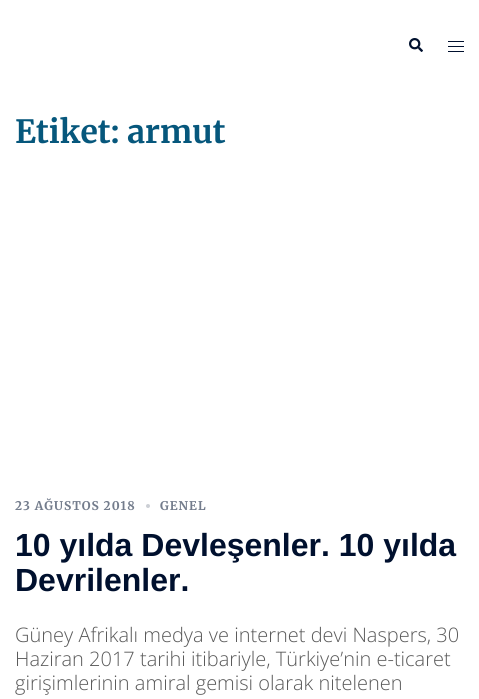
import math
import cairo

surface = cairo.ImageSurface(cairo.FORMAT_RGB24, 479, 699)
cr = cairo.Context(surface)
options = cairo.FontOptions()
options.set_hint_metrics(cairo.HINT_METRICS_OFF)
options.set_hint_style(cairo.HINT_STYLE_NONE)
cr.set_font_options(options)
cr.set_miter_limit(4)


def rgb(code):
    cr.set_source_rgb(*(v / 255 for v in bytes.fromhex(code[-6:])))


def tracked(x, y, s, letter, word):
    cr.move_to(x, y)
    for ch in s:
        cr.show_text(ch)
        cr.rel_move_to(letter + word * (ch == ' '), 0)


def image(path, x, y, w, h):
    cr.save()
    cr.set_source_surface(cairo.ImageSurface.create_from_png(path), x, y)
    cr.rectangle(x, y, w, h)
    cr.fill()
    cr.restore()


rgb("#ffffff")
cr.paint()
image("img/1.png", 409, 38, 14, 14)
for x, y, w, h, color in [
    (448, 41, 16, 1, "#00102e"),
    (448, 46, 16, 1, "#00102e"),
    (448, 51, 16, 1, "#00102e"),
]:
    rgb(color)
    cr.rectangle(x, y, w, h)
    cr.fill()
rgb("#cccfd5")
cr.arc(148, 506, 2, 0, 2 * math.pi)
cr.fill()
cr.select_font_face("Merriweather Light")
cr.set_font_size(32)
rgb("#06577c")
cr.move_to(15, 143)
cr.show_text("Etiket: armut")
cr.set_font_size(12)
rgb("#737c8c")
tracked(15, 510, "23 AĞUSTOS 2018", 1, 0)
tracked(160, 510, "GENEL", 1, 0)
cr.select_font_face("Liberation Sans", cairo.FONT_SLANT_NORMAL, cairo.FONT_WEIGHT_BOLD)
cr.set_font_size(32)
rgb("#00102e")
cr.move_to(15, 556)
cr.show_text("10 yılda Devleşenler. 10 yılda")
cr.move_to(15, 591)
cr.show_text("Devrilenler.")
cr.select_font_face("Open Sans Light")
cr.set_font_size(20)
rgb("#595959")
for x, y, s in [
    (15, 642, "Güney Afrikalı medya ve internet devi Naspers, 30"),
    (15, 666, "Haziran 2017 tarihi itibariyle, Türkiye’nin e-ticaret"),
    (15, 690, "girişimlerinin amiral gemisi olarak nitelenen"),
]:
    cr.move_to(x, y)
    cr.show_text(s)
surface.write_to_png("page.png")
